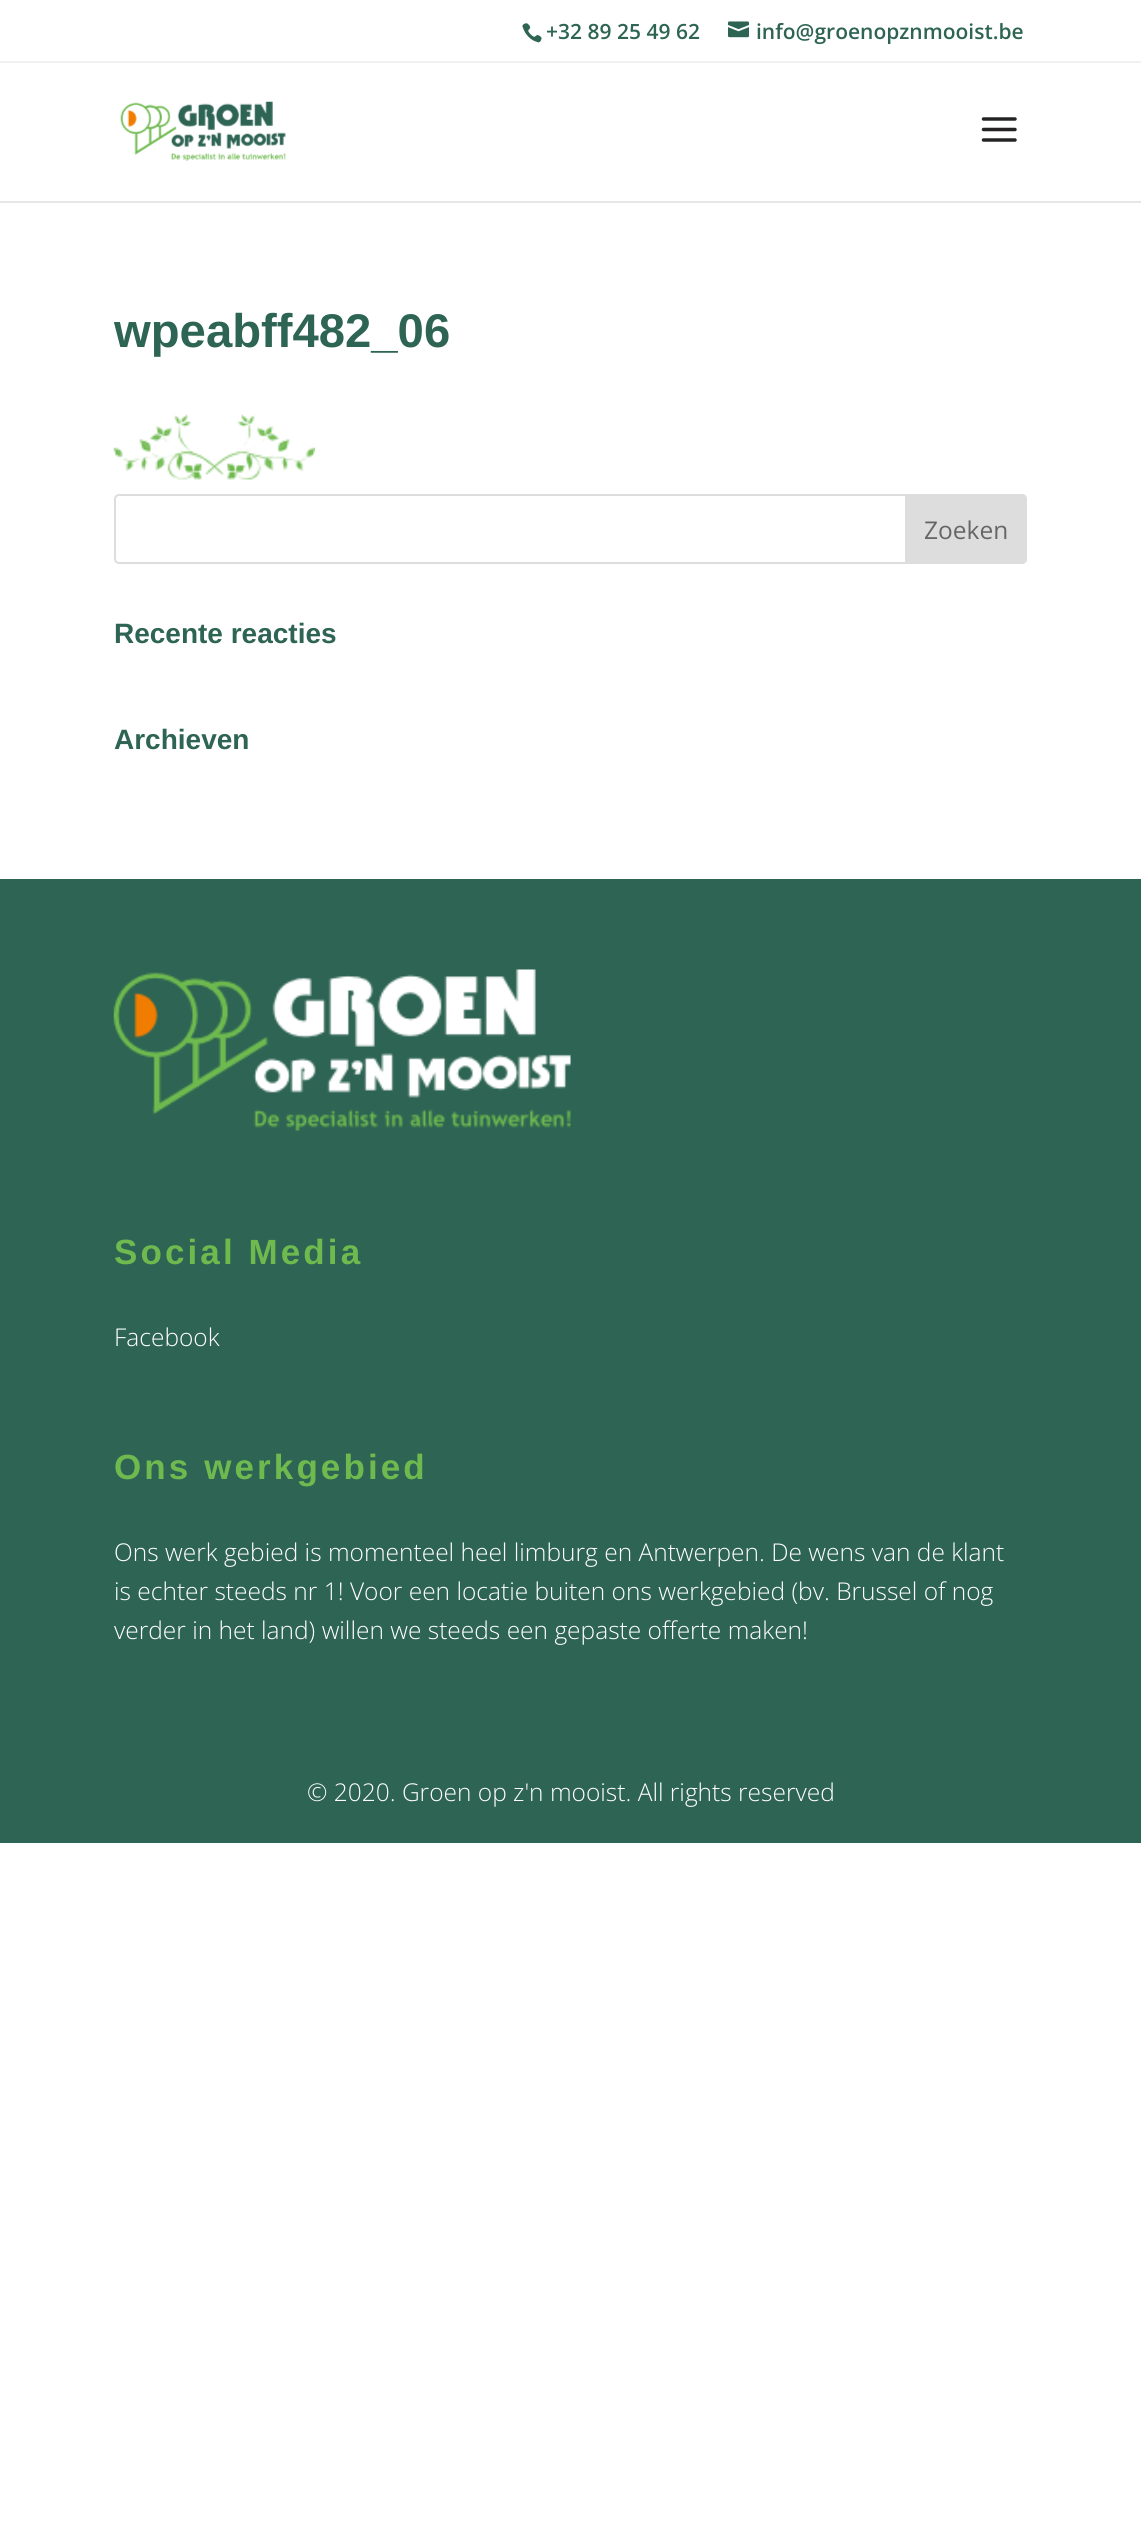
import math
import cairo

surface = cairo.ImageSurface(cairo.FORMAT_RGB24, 1141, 2530)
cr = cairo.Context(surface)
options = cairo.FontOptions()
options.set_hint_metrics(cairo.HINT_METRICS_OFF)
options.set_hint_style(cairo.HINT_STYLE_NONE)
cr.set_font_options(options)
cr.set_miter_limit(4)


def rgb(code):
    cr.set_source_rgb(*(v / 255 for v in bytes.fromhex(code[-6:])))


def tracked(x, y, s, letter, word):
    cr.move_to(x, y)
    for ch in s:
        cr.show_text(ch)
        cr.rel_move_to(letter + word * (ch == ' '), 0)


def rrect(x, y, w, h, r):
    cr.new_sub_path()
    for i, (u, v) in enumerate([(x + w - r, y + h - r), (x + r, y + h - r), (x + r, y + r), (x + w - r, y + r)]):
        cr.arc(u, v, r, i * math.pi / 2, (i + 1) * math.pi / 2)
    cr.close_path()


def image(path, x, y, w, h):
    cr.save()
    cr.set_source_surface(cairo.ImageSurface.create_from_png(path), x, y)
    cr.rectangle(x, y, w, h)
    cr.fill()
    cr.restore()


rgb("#ffffff")
cr.paint()
rgb("#f1f1f1")
cr.rectangle(0, 61, 1141, 2)
cr.fill()
image("img/1.png", 522, 23, 20, 20)
image("img/2.png", 728, 21, 21, 17)
rgb("#e6e6e6")
cr.rectangle(0, 201, 1141, 2)
cr.fill()
image("img/3.png", 120, 101, 166, 60)
image("img/4.png", 981, 117, 36, 25)
image("img/5.png", 113, 414, 202, 66)
rrect(115, 495, 911, 68, 4)
rgb("#dddddd")
cr.stroke()
cr.new_path()
cr.move_to(906, 495)
cr.line_to(1022, 495)
cr.curve_to(1024, 495, 1026, 497, 1026, 499)
cr.line_to(1026, 559)
cr.curve_to(1026, 561, 1024, 563, 1022, 563)
cr.line_to(906, 563)
cr.close_path()
cr.fill_preserve()
cr.stroke()
rgb("#2e6453")
cr.rectangle(0, 879, 1141, 964)
cr.fill()
image("img/6.png", 113, 969, 458, 162)
cr.select_font_face("Open Sans SemiBold")
cr.set_font_size(21)
cr.move_to(546, 39)
cr.show_text("+32 89 25 49 62")
cr.move_to(756, 39)
cr.show_text("info@groenopznmooist.be")
cr.select_font_face("Liberation Sans", cairo.FONT_SLANT_NORMAL, cairo.FONT_WEIGHT_BOLD)
cr.set_font_size(47.25)
cr.move_to(114, 347)
cr.show_text("wpeabff482_06")
cr.select_font_face("Open Sans")
cr.set_font_size(24.5)
rgb("#666666")
cr.move_to(924, 539)
cr.show_text("Zoeken")
cr.select_font_face("Liberation Sans", cairo.FONT_SLANT_NORMAL, cairo.FONT_WEIGHT_BOLD)
cr.set_font_size(28)
rgb("#2e6453")
cr.move_to(114, 643)
cr.show_text("Recente reacties")
cr.move_to(114, 749)
cr.show_text("Archieven")
cr.set_font_size(35)
rgb("#6eba4f")
tracked(114, 1264, "Social Media", 3.1, 0)
cr.select_font_face("Open Sans Light")
cr.set_font_size(24.5)
rgb("#ffffff")
cr.move_to(114, 1346)
cr.show_text("Facebook")
cr.select_font_face("Liberation Sans", cairo.FONT_SLANT_NORMAL, cairo.FONT_WEIGHT_BOLD)
cr.set_font_size(35)
rgb("#6eba4f")
tracked(114, 1479, "Ons werkgebied", 3.1, 0)
cr.select_font_face("Open Sans Light")
cr.set_font_size(24.5)
rgb("#ffffff")
for x, y, s in [
    (114, 1561, "Ons werk gebied is momenteel heel limburg en Antwerpen. De wens van de klant"),
    (114, 1600, "is echter steeds nr 1! Voor een locatie buiten ons werkgebied (bv. Brussel of nog"),
    (114, 1639, "verder in het land) willen we steeds een gepaste offerte maken!"),
    (307, 1801, "© 2020. Groen op z'n mooist. All rights reserved"),
]:
    cr.move_to(x, y)
    cr.show_text(s)
surface.write_to_png("page.png")
